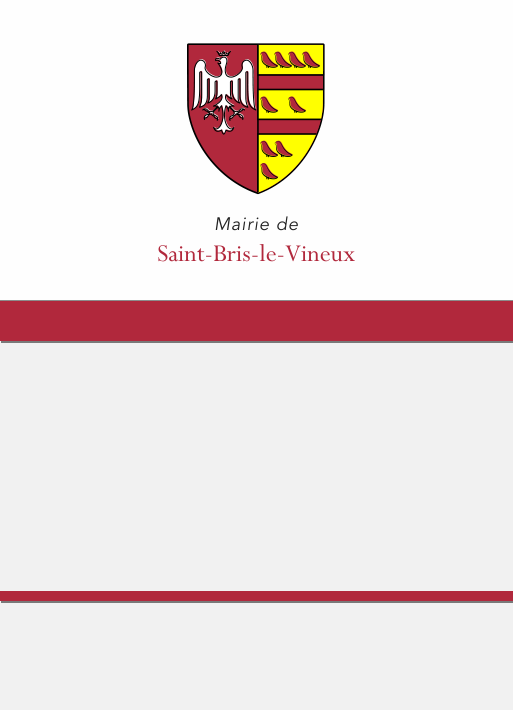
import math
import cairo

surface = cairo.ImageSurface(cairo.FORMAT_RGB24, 513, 710)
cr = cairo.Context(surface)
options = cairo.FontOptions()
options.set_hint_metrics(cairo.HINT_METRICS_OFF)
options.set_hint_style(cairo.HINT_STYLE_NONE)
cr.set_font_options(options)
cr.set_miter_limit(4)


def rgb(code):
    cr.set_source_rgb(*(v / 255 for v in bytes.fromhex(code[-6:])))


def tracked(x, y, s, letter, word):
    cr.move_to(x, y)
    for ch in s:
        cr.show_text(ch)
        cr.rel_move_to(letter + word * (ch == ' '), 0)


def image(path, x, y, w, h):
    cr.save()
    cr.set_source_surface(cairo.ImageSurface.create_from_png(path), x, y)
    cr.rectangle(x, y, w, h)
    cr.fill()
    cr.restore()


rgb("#f1f1f1")
cr.paint()
rgb("#797979")
cr.new_path()
cr.move_to(1, 341)
cr.line_to(1, 343)
cr.line_to(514, 343)
cr.line_to(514, 2)
cr.line_to(513, 2)
cr.line_to(513, 341)
cr.close_path()
cr.fill()
rgb("#fefefe")
cr.rectangle(0, 0, 513, 300)
cr.fill()
rgb("#8c8c8c")
cr.rectangle(0, 300, 513, 1)
cr.fill()
image("img/1.png", 187, 43, 138, 152)
rgb("#b1283c")
cr.rectangle(0, 301, 513, 40)
cr.fill()
rgb("#797979")
cr.new_path()
cr.move_to(1, 601)
cr.line_to(1, 603)
cr.line_to(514, 603)
cr.line_to(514, 343)
cr.line_to(513, 343)
cr.line_to(513, 601)
cr.close_path()
cr.fill()
rgb("#b1283c")
cr.rectangle(0, 591, 513, 10)
cr.fill()
cr.select_font_face("Avenir", cairo.FONT_SLANT_ITALIC)
cr.set_font_size(18)
rgb("#222222")
tracked(214, 230, "Mairie de", 1, 0)
cr.select_font_face("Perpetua")
cr.set_font_size(27)
rgb("#b1283c")
cr.move_to(157, 261)
cr.show_text("Saint-Bris-le-Vineux")
surface.write_to_png("page.png")
